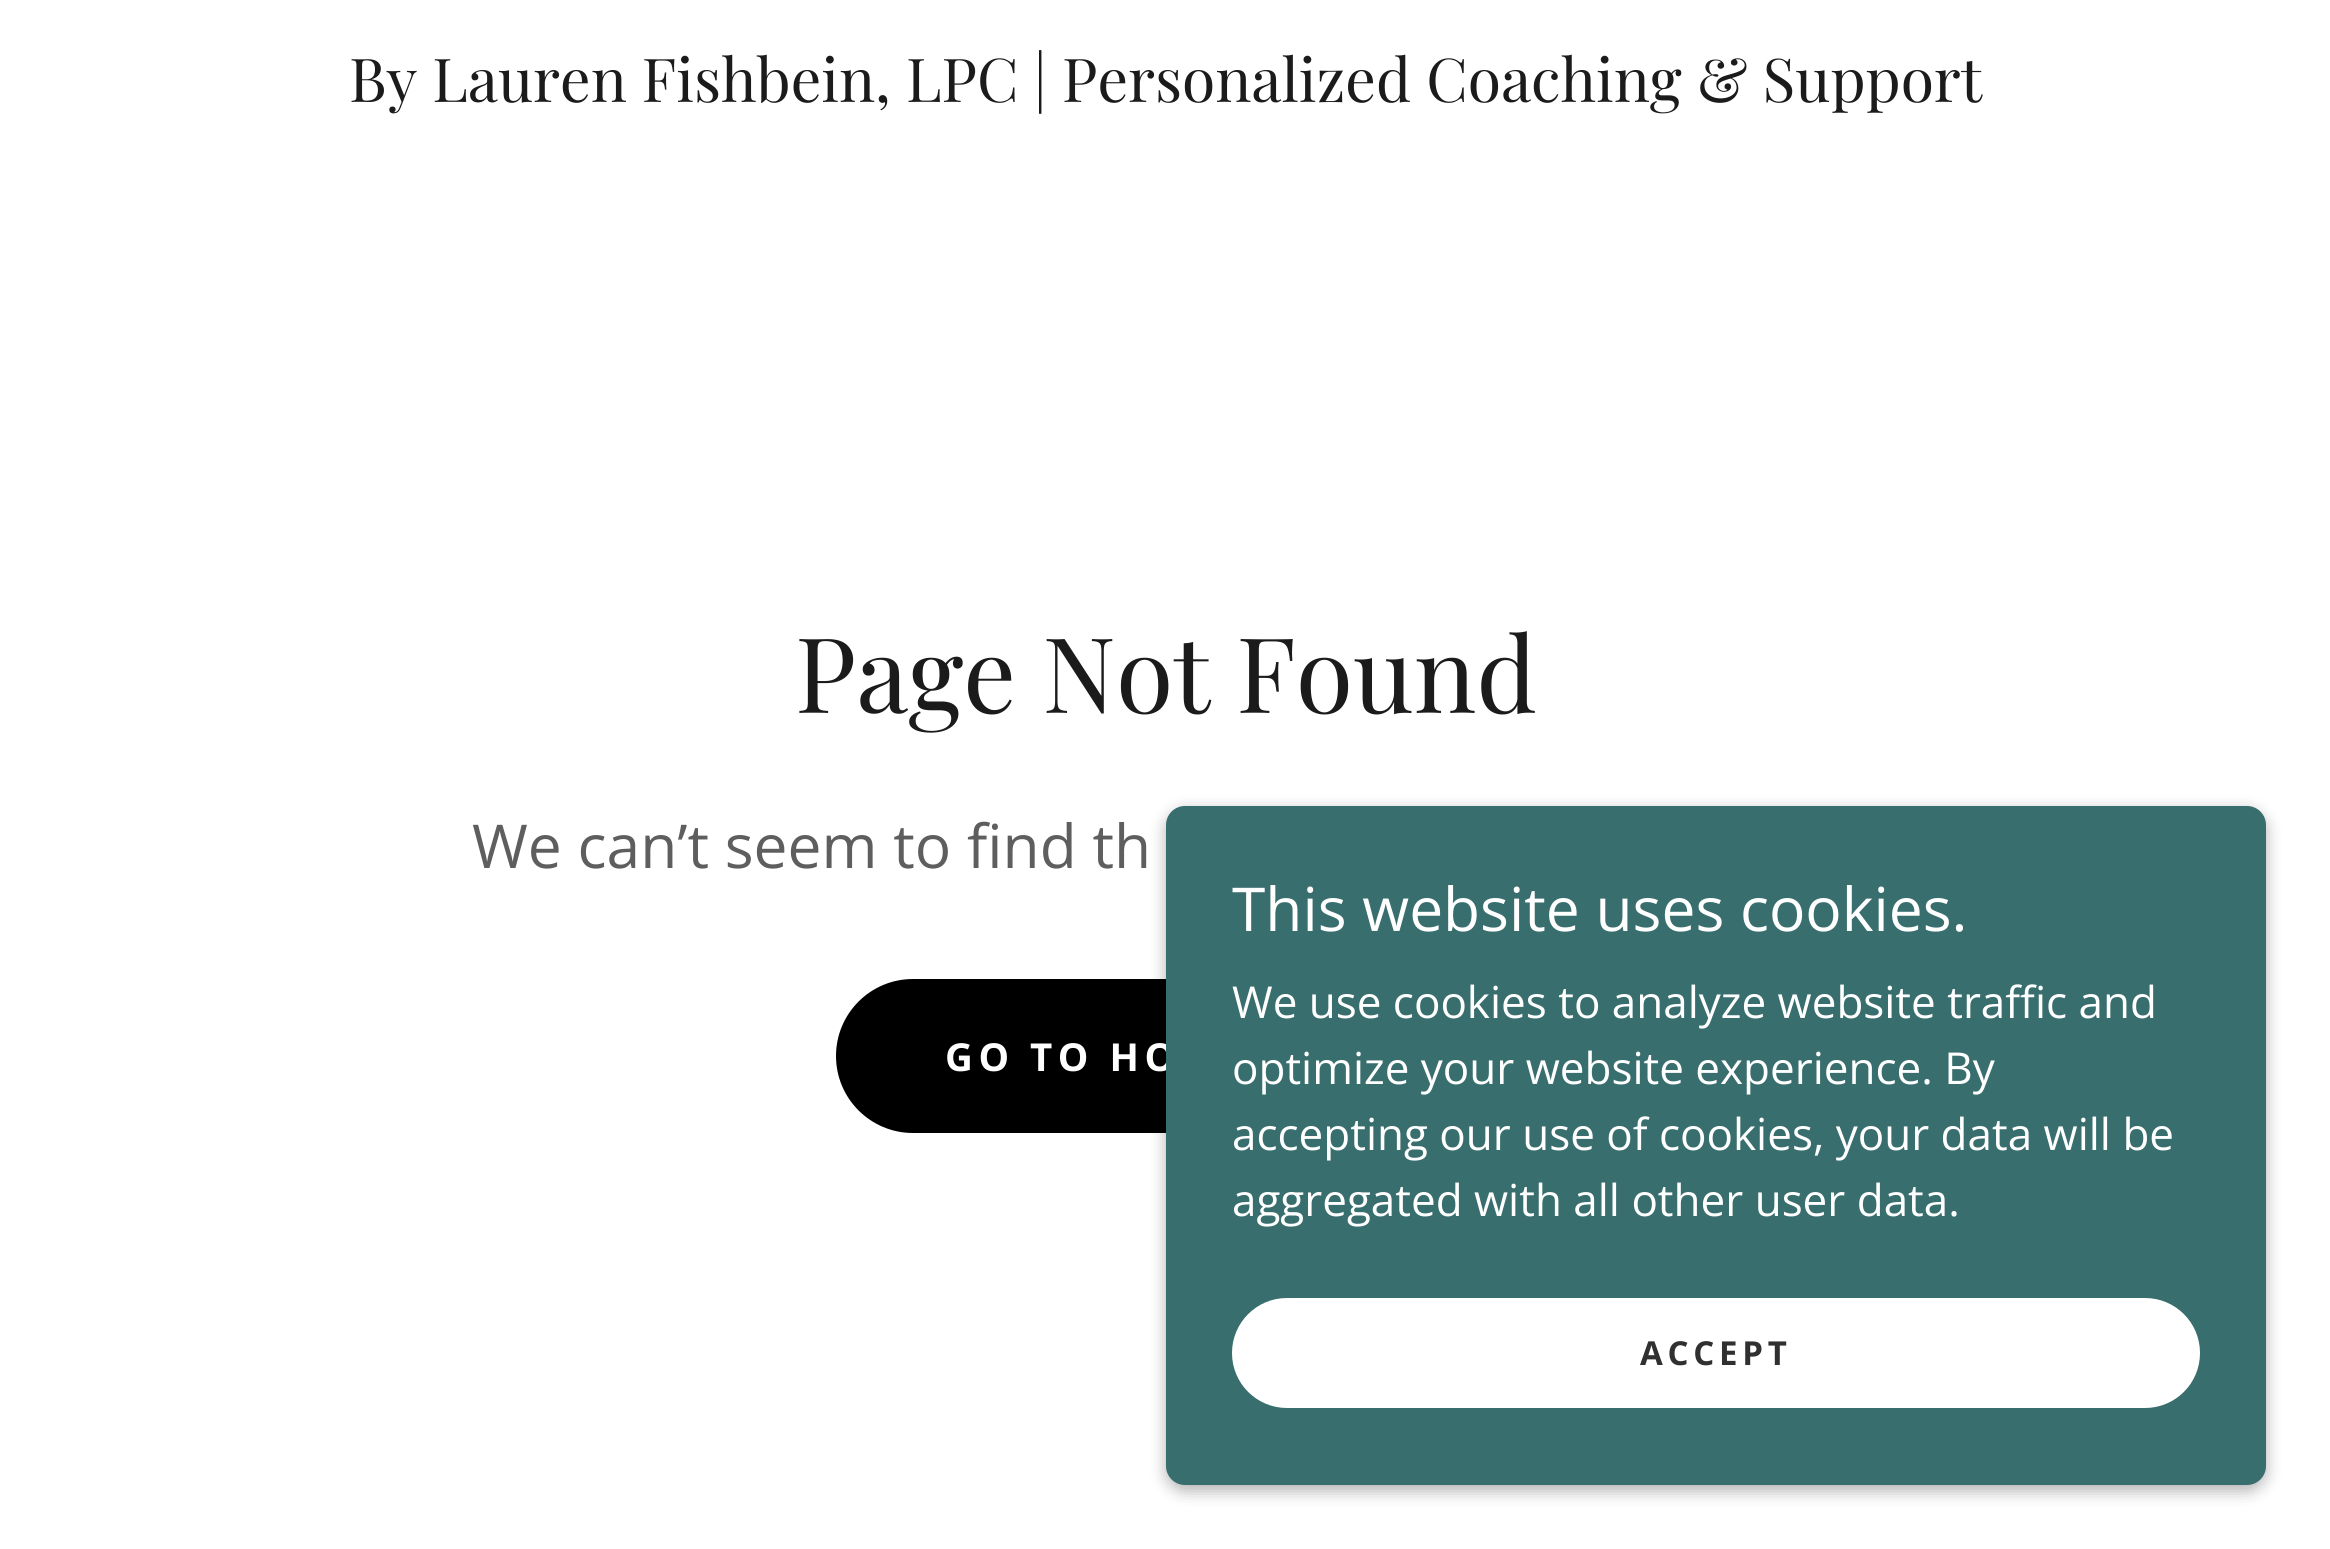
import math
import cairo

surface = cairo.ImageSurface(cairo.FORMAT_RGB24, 2330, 1549)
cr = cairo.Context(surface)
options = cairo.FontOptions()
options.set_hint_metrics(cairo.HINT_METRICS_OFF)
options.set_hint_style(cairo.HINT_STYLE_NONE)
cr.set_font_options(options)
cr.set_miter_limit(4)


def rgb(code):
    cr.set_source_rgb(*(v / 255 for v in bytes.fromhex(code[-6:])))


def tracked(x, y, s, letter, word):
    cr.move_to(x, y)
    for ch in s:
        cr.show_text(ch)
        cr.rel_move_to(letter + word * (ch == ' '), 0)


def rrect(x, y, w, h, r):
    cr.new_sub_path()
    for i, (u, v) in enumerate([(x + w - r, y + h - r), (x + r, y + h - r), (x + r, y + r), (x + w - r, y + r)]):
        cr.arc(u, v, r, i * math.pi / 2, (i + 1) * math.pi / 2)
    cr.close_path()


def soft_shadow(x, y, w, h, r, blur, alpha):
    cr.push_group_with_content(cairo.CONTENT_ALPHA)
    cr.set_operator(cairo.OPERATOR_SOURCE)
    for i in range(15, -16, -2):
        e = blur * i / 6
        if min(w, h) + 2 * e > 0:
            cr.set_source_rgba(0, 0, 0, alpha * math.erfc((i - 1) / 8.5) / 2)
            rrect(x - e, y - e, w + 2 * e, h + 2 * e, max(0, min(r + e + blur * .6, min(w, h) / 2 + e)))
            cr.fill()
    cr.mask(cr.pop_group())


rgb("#ffffff")
cr.paint()
rgb("#000000")
rrect(836, 979, 660, 154, 77)
cr.fill()
rgb("#000000")
soft_shadow(1166, 811, 1100, 680, 19, 8, 0.3)
cr.select_font_face("Playfair Display")
cr.set_font_size(60.5)
rgb("#1b1b1b")
cr.move_to(349, 102)
cr.show_text("By Lauren Fishbein, LPC | Personalized Coaching & Support")
cr.set_font_size(104.5)
cr.move_to(795, 713)
cr.show_text("Page Not Found")
cr.select_font_face("Open Sans")
cr.set_font_size(60.5)
rgb("#5e5e5e")
cr.move_to(472, 868)
cr.show_text("We can’t seem to find th")
cr.select_font_face("Open Sans", cairo.FONT_SLANT_NORMAL, cairo.FONT_WEIGHT_BOLD)
cr.set_font_size(38.5)
rgb("#ffffff")
tracked(945, 1071, "GO TO HO", 5.5, 0)
rgb("#396e6e")
rrect(1166, 806, 1100, 679, 19)
cr.fill()
cr.select_font_face("Open Sans")
cr.set_font_size(60.5)
rgb("#ffffff")
cr.move_to(1232, 931)
cr.show_text("This website uses cookies.")
cr.set_font_size(44)
for x, y, s in [
    (1232, 1018, "We use cookies to analyze website traffic and"),
    (1232, 1084, "optimize your website experience. By"),
    (1232, 1150, "accepting our use of cookies, your data will be"),
    (1232, 1216, "aggregated with all other user data."),
]:
    cr.move_to(x, y)
    cr.show_text(s)
rrect(1232, 1298, 968, 110, 55)
cr.fill()
cr.select_font_face("Open Sans", cairo.FONT_SLANT_NORMAL, cairo.FONT_WEIGHT_BOLD)
cr.set_font_size(33)
rgb("#303030")
tracked(1640, 1365, "ACCEPT", 4.75, 0)
surface.write_to_png("page.png")
